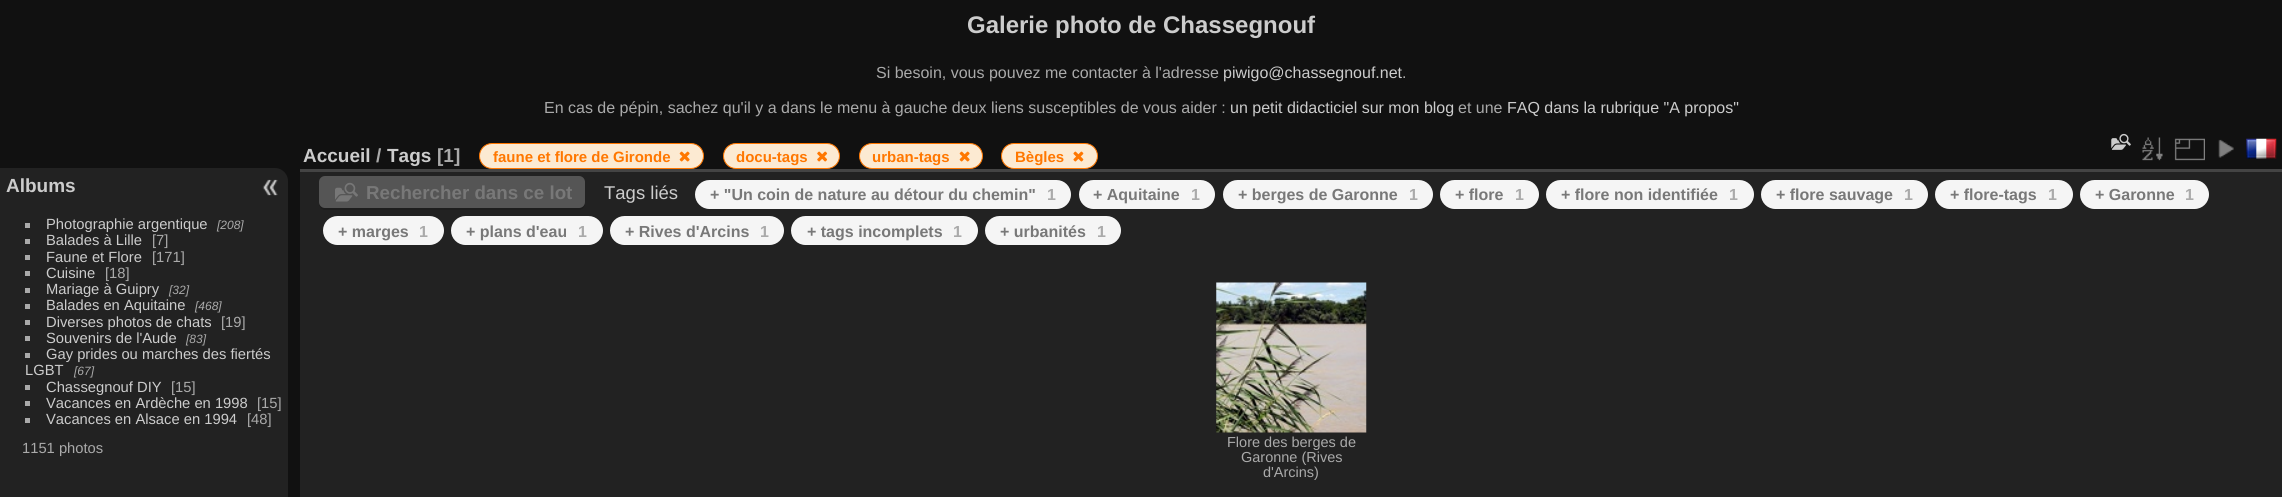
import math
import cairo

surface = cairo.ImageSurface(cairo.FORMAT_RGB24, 2282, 497)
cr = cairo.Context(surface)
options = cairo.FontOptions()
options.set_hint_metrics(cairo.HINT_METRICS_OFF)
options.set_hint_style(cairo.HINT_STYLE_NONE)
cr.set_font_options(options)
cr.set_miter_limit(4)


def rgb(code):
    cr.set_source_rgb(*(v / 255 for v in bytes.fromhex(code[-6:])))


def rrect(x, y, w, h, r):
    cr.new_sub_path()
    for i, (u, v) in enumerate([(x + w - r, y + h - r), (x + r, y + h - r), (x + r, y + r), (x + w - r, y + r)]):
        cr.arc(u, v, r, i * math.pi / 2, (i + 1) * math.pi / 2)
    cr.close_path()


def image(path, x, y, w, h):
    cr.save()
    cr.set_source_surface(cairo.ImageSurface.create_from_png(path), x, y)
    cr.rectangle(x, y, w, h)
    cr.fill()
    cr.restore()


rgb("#111111")
cr.paint()
rgb("#222222")
cr.new_path()
cr.move_to(0, 168)
cr.line_to(275, 168)
cr.curve_to(282, 168, 288, 174, 288, 181)
cr.line_to(288, 497)
cr.curve_to(288, 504, 282, 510, 275, 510)
cr.line_to(0, 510)
cr.close_path()
cr.fill()
for x, y, w, h, color in [
    (25, 223, 5, 5, "#aaaaaa"),
    (25, 239, 5, 5, "#aaaaaa"),
    (25, 255, 5, 5, "#aaaaaa"),
    (25, 271, 5, 5, "#aaaaaa"),
    (25, 288, 5, 5, "#aaaaaa"),
    (25, 304, 5, 5, "#aaaaaa"),
    (25, 320, 5, 5, "#aaaaaa"),
    (25, 336, 5, 5, "#aaaaaa"),
    (25, 353, 5, 5, "#aaaaaa"),
    (25, 385, 5, 5, "#aaaaaa"),
    (25, 401, 5, 5, "#aaaaaa"),
    (25, 418, 5, 5, "#aaaaaa"),
    (300, 172, 1982, 325, "#222222"),
    (300, 169, 1982, 3, "#444444"),
]:
    rgb(color)
    cr.rectangle(x, y, w, h)
    cr.fill()
rgb("#fcead2")
rrect(479.5, 143.5, 224, 25, 12.5)
cr.fill_preserve()
rgb("#ff7700")
cr.set_line_width(1)
cr.stroke()
image("img/1.png", 679, 151, 11, 11)
rgb("#fcead2")
rrect(723.5, 143.5, 116, 25, 12.5)
cr.fill_preserve()
rgb("#ff7700")
cr.stroke()
image("img/2.png", 817, 151, 11, 11)
rgb("#fcead2")
rrect(859.5, 143.5, 123, 25, 12.5)
cr.fill_preserve()
rgb("#ff7700")
cr.stroke()
image("img/1.png", 959, 151, 11, 11)
rgb("#fcead2")
rrect(1001.5, 143.5, 96, 25, 12.5)
cr.fill_preserve()
rgb("#ff7700")
cr.stroke()
image("img/3.png", 1073, 151, 11, 11)
image("img/4.png", 2111, 133, 20, 17)
image("img/5.png", 2142, 137, 21, 24)
image("img/6.png", 2174, 138, 31, 23)
image("img/7.png", 2218, 139, 16, 19)
image("img/8.png", 2246, 138, 31, 21)
rgb("#1d1d1d")
cr.new_path()
cr.move_to(319, 203)
cr.line_to(319, 204)
cr.curve_to(319, 207, 322, 210, 325, 210)
cr.line_to(579, 210)
cr.curve_to(582, 210, 585, 207, 585, 204)
cr.line_to(585, 201)
cr.curve_to(585, 205, 582, 208, 579, 208)
cr.line_to(325, 208)
cr.curve_to(322, 208, 320, 206, 319, 203)
cr.close_path()
cr.fill()
rgb("#555555")
rrect(319, 176, 266, 32, 6)
cr.fill()
image("img/9.png", 335, 182, 23, 20)
rgb("#f5f5f5")
rrect(695, 180, 376, 29, 14.5)
cr.fill()
rrect(1079, 180, 136, 29, 14.5)
cr.fill()
rrect(1223, 180, 210, 29, 14.5)
cr.fill()
rrect(1440, 180, 99, 29, 14.5)
cr.fill()
rrect(1546, 180, 208, 29, 14.5)
cr.fill()
rrect(1761, 180, 167, 29, 14.5)
cr.fill()
rrect(1935, 180, 138, 29, 14.5)
cr.fill()
rrect(2080, 180, 129, 29, 14.5)
cr.fill()
rrect(323, 216, 121, 29, 14.5)
cr.fill()
rrect(451, 216, 152, 29, 14.5)
cr.fill()
rrect(610, 216, 174, 29, 14.5)
cr.fill()
rrect(791, 216, 187, 29, 14.5)
cr.fill()
rrect(985, 216, 136, 29, 14.5)
cr.fill()
image("img/10.png", 1216, 282, 151, 151)
image("img/11.png", 262, 179, 16, 17)
cr.select_font_face("Liberation Sans", cairo.FONT_SLANT_NORMAL, cairo.FONT_WEIGHT_BOLD)
cr.set_font_size(24)
rgb("#cccccc")
cr.move_to(967, 33)
cr.show_text("Galerie photo de Chassegnouf")
cr.select_font_face("Liberation Sans")
cr.set_font_size(16)
rgb("#aaaaaa")
cr.move_to(876, 78)
cr.show_text("Si besoin, vous pouvez me contacter à l'adresse")
rgb("#cccccc")
cr.move_to(1223, 78)
cr.show_text("piwigo@chassegnouf.net")
rgb("#aaaaaa")
cr.move_to(1402, 78)
cr.show_text(".")
cr.move_to(544, 113)
cr.show_text("En cas de pépin, sachez qu'il y a dans le menu à gauche deux liens susceptibles de vous aider :")
rgb("#cccccc")
cr.move_to(1230, 113)
cr.show_text("un petit didacticiel sur mon blog")
rgb("#aaaaaa")
cr.move_to(1458, 113)
cr.show_text("et une")
rgb("#cccccc")
cr.move_to(1507, 113)
cr.show_text("FAQ dans la rubrique \"A propos\"")
cr.select_font_face("Liberation Sans", cairo.FONT_SLANT_NORMAL, cairo.FONT_WEIGHT_BOLD)
cr.set_font_size(19)
cr.move_to(6, 192)
cr.show_text("Albums")
cr.select_font_face("Liberation Sans")
cr.set_font_size(14.75)
cr.move_to(46, 229)
cr.show_text("Photographie argentique")
cr.select_font_face("Liberation Sans", cairo.FONT_SLANT_ITALIC)
cr.set_font_size(12)
rgb("#aaaaaa")
cr.move_to(217, 229)
cr.show_text("[208]")
cr.select_font_face("Liberation Sans")
cr.set_font_size(14.75)
rgb("#cccccc")
cr.move_to(46, 245)
cr.show_text("Balades à Lille")
rgb("#aaaaaa")
cr.move_to(152, 245)
cr.show_text("[7]")
rgb("#cccccc")
cr.move_to(46, 262)
cr.show_text("Faune et Flore")
rgb("#aaaaaa")
cr.move_to(152, 262)
cr.show_text("[171]")
rgb("#cccccc")
cr.move_to(46, 278)
cr.show_text("Cuisine")
rgb("#aaaaaa")
cr.move_to(105, 278)
cr.show_text("[18]")
rgb("#cccccc")
cr.move_to(46, 294)
cr.show_text("Mariage à Guipry")
cr.select_font_face("Liberation Sans", cairo.FONT_SLANT_ITALIC)
cr.set_font_size(12)
rgb("#aaaaaa")
cr.move_to(169, 294)
cr.show_text("[32]")
cr.select_font_face("Liberation Sans")
cr.set_font_size(14.75)
rgb("#cccccc")
cr.move_to(46, 310)
cr.show_text("Balades en Aquitaine")
cr.select_font_face("Liberation Sans", cairo.FONT_SLANT_ITALIC)
cr.set_font_size(12)
rgb("#aaaaaa")
cr.move_to(195, 310)
cr.show_text("[468]")
cr.select_font_face("Liberation Sans")
cr.set_font_size(14.75)
rgb("#cccccc")
cr.move_to(46, 327)
cr.show_text("Diverses photos de chats")
rgb("#aaaaaa")
cr.move_to(221, 327)
cr.show_text("[19]")
rgb("#cccccc")
cr.move_to(46, 343)
cr.show_text("Souvenirs de l'Aude")
cr.select_font_face("Liberation Sans", cairo.FONT_SLANT_ITALIC)
cr.set_font_size(12)
rgb("#aaaaaa")
cr.move_to(186, 343)
cr.show_text("[83]")
cr.select_font_face("Liberation Sans")
cr.set_font_size(14.75)
rgb("#cccccc")
cr.move_to(46, 359)
cr.show_text("Gay prides ou marches des fiertés")
cr.move_to(25, 375)
cr.show_text("LGBT")
cr.select_font_face("Liberation Sans", cairo.FONT_SLANT_ITALIC)
cr.set_font_size(12)
rgb("#aaaaaa")
cr.move_to(74, 375)
cr.show_text("[67]")
cr.select_font_face("Liberation Sans")
cr.set_font_size(14.75)
rgb("#cccccc")
cr.move_to(46, 392)
cr.show_text("Chassegnouf DIY")
rgb("#aaaaaa")
cr.move_to(171, 392)
cr.show_text("[15]")
rgb("#cccccc")
cr.move_to(46, 408)
cr.show_text("Vacances en Ardèche en 1998")
rgb("#aaaaaa")
cr.move_to(257, 408)
cr.show_text("[15]")
rgb("#cccccc")
cr.move_to(46, 424)
cr.show_text("Vacances en Alsace en 1994")
rgb("#aaaaaa")
cr.move_to(247, 424)
cr.show_text("[48]")
cr.move_to(22, 453)
cr.show_text("1151 photos")
cr.select_font_face("Liberation Sans", cairo.FONT_SLANT_NORMAL, cairo.FONT_WEIGHT_BOLD)
cr.set_font_size(19)
rgb("#cccccc")
cr.move_to(303, 162)
cr.show_text("Accueil")
rgb("#aaaaaa")
cr.move_to(376, 162)
cr.show_text("/")
rgb("#cccccc")
cr.move_to(387, 162)
cr.show_text("Tags")
rgb("#aaaaaa")
cr.move_to(437, 162)
cr.show_text("[1]")
cr.set_font_size(15)
rgb("#ff7700")
for x, y, s in [
    (493, 162, "faune et flore de Gironde"),
    (736, 162, "docu-tags"),
    (872, 162, "urban-tags"),
    (1015, 162, "Bègles"),
]:
    cr.move_to(x, y)
    cr.show_text(s)
cr.set_font_size(18.75)
rgb("#787878")
cr.move_to(366, 199)
cr.show_text("Rechercher dans ce lot")
cr.select_font_face("Liberation Sans")
cr.set_font_size(18.5)
rgb("#cccccc")
cr.move_to(604, 199)
cr.show_text("Tags liés")
cr.select_font_face("Liberation Sans", cairo.FONT_SLANT_NORMAL, cairo.FONT_WEIGHT_BOLD)
cr.set_font_size(16)
rgb("#787878")
cr.move_to(710, 200)
cr.show_text("+ \"Un coin de nature au détour du chemin\"")
rgb("#aaaaaa")
cr.move_to(1047, 200)
cr.show_text("1")
rgb("#787878")
cr.move_to(1093, 200)
cr.show_text("+ Aquitaine")
rgb("#aaaaaa")
cr.move_to(1191, 200)
cr.show_text("1")
rgb("#787878")
cr.move_to(1238, 200)
cr.show_text("+ berges de Garonne")
rgb("#aaaaaa")
cr.move_to(1409, 200)
cr.show_text("1")
rgb("#787878")
cr.move_to(1455, 200)
cr.show_text("+ flore")
rgb("#aaaaaa")
cr.move_to(1515, 200)
cr.show_text("1")
rgb("#787878")
cr.move_to(1561, 200)
cr.show_text("+ flore non identifiée")
rgb("#aaaaaa")
cr.move_to(1729, 200)
cr.show_text("1")
rgb("#787878")
cr.move_to(1776, 200)
cr.show_text("+ flore sauvage")
rgb("#aaaaaa")
cr.move_to(1904, 200)
cr.show_text("1")
rgb("#787878")
cr.move_to(1950, 200)
cr.show_text("+ flore-tags")
rgb("#aaaaaa")
cr.move_to(2048, 200)
cr.show_text("1")
rgb("#787878")
cr.move_to(2095, 200)
cr.show_text("+ Garonne")
rgb("#aaaaaa")
cr.move_to(2185, 200)
cr.show_text("1")
rgb("#787878")
cr.move_to(338, 237)
cr.show_text("+ marges")
rgb("#aaaaaa")
cr.move_to(419, 237)
cr.show_text("1")
rgb("#787878")
cr.move_to(466, 237)
cr.show_text("+ plans d'eau")
rgb("#aaaaaa")
cr.move_to(578, 237)
cr.show_text("1")
rgb("#787878")
cr.move_to(625, 237)
cr.show_text("+ Rives d'Arcins")
rgb("#aaaaaa")
cr.move_to(760, 237)
cr.show_text("1")
rgb("#787878")
cr.move_to(807, 237)
cr.show_text("+ tags incomplets")
rgb("#aaaaaa")
cr.move_to(953, 237)
cr.show_text("1")
rgb("#787878")
cr.move_to(1000, 237)
cr.show_text("+ urbanités")
rgb("#aaaaaa")
cr.move_to(1097, 237)
cr.show_text("1")
cr.select_font_face("Liberation Sans")
cr.set_font_size(14.5)
for x, y, s in [
    (1227, 447, "Flore des berges de"),
    (1241, 462, "Garonne (Rives"),
    (1263, 477, "d'Arcins)"),
]:
    cr.move_to(x, y)
    cr.show_text(s)
surface.write_to_png("page.png")
